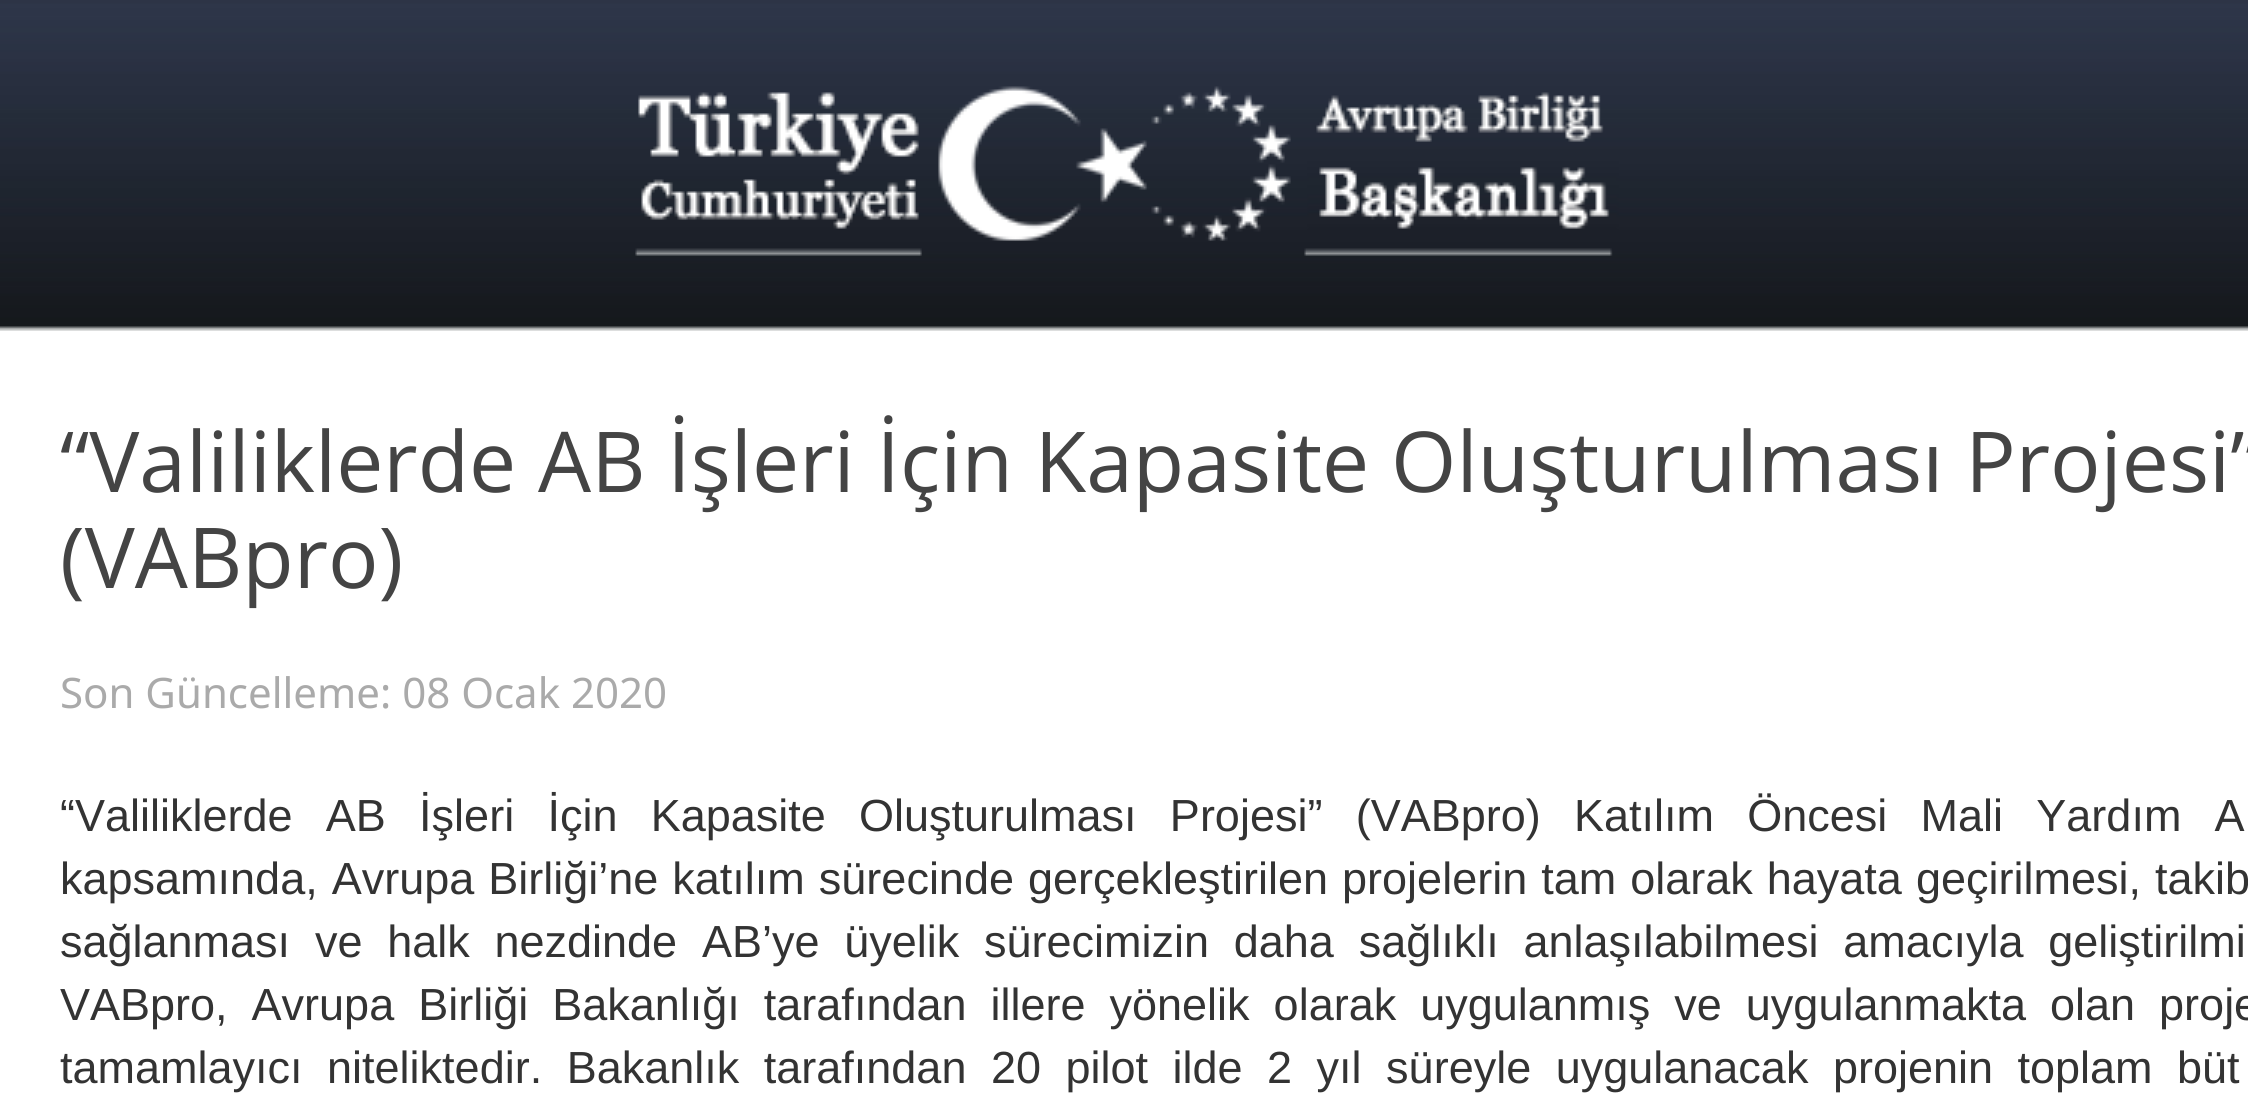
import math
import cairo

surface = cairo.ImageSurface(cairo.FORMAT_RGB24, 2248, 1103)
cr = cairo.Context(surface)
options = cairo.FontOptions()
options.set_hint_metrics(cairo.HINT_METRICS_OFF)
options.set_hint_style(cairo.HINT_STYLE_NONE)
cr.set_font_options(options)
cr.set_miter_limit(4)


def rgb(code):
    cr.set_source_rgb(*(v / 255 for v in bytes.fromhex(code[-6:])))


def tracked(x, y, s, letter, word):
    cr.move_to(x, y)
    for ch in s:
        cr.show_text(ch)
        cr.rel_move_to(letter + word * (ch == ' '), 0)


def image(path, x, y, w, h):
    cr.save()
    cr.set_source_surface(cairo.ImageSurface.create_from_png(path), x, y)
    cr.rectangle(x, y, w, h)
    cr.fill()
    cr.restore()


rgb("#ffffff")
cr.paint()
image("img/1.png", 0, 0, 2248, 331)
cr.select_font_face("Open Sans")
cr.set_font_size(84)
rgb("#444444")
cr.move_to(60, 492)
cr.show_text("“Valiliklerde AB İşleri İçin Kapasite Oluşturulması Projesi”")
cr.move_to(60, 588)
cr.show_text("(VABpro)")
cr.select_font_face("Noto Sans")
cr.set_font_size(42)
rgb("#aaaaaa")
cr.move_to(60, 708)
cr.show_text("Son Güncelleme: 08 Ocak 2020")
cr.select_font_face("Liberation Sans")
cr.set_font_size(45)
rgb("#333333")
tracked(60, 831, "“Valiliklerde AB İşleri İçin Kapasite Oluşturulması Projesi” (VABpro) Katılım Öncesi Mali Yardım A", 0, 20.75)
tracked(60, 894, "kapsamında, Avrupa Birliği’ne katılım sürecinde gerçekleştirilen projelerin tam olarak hayata geçirilmesi, takib", 0, 1.5)
tracked(60, 957, "sağlanması ve halk nezdinde AB’ye üyelik sürecimizin daha sağlıklı anlaşılabilmesi amacıyla geliştirilmi", 0, 12.25)
tracked(60, 1020, "VABpro, Avrupa Birliği Bakanlığı tarafından illere yönelik olarak uygulanmış ve uygulanmakta olan proje", 0, 11.5)
tracked(60, 1083, "tamamlayıcı niteliktedir. Bakanlık tarafından 20 pilot ilde 2 yıl süreyle uygulanacak projenin toplam büt", 0, 12)
surface.write_to_png("page.png")
